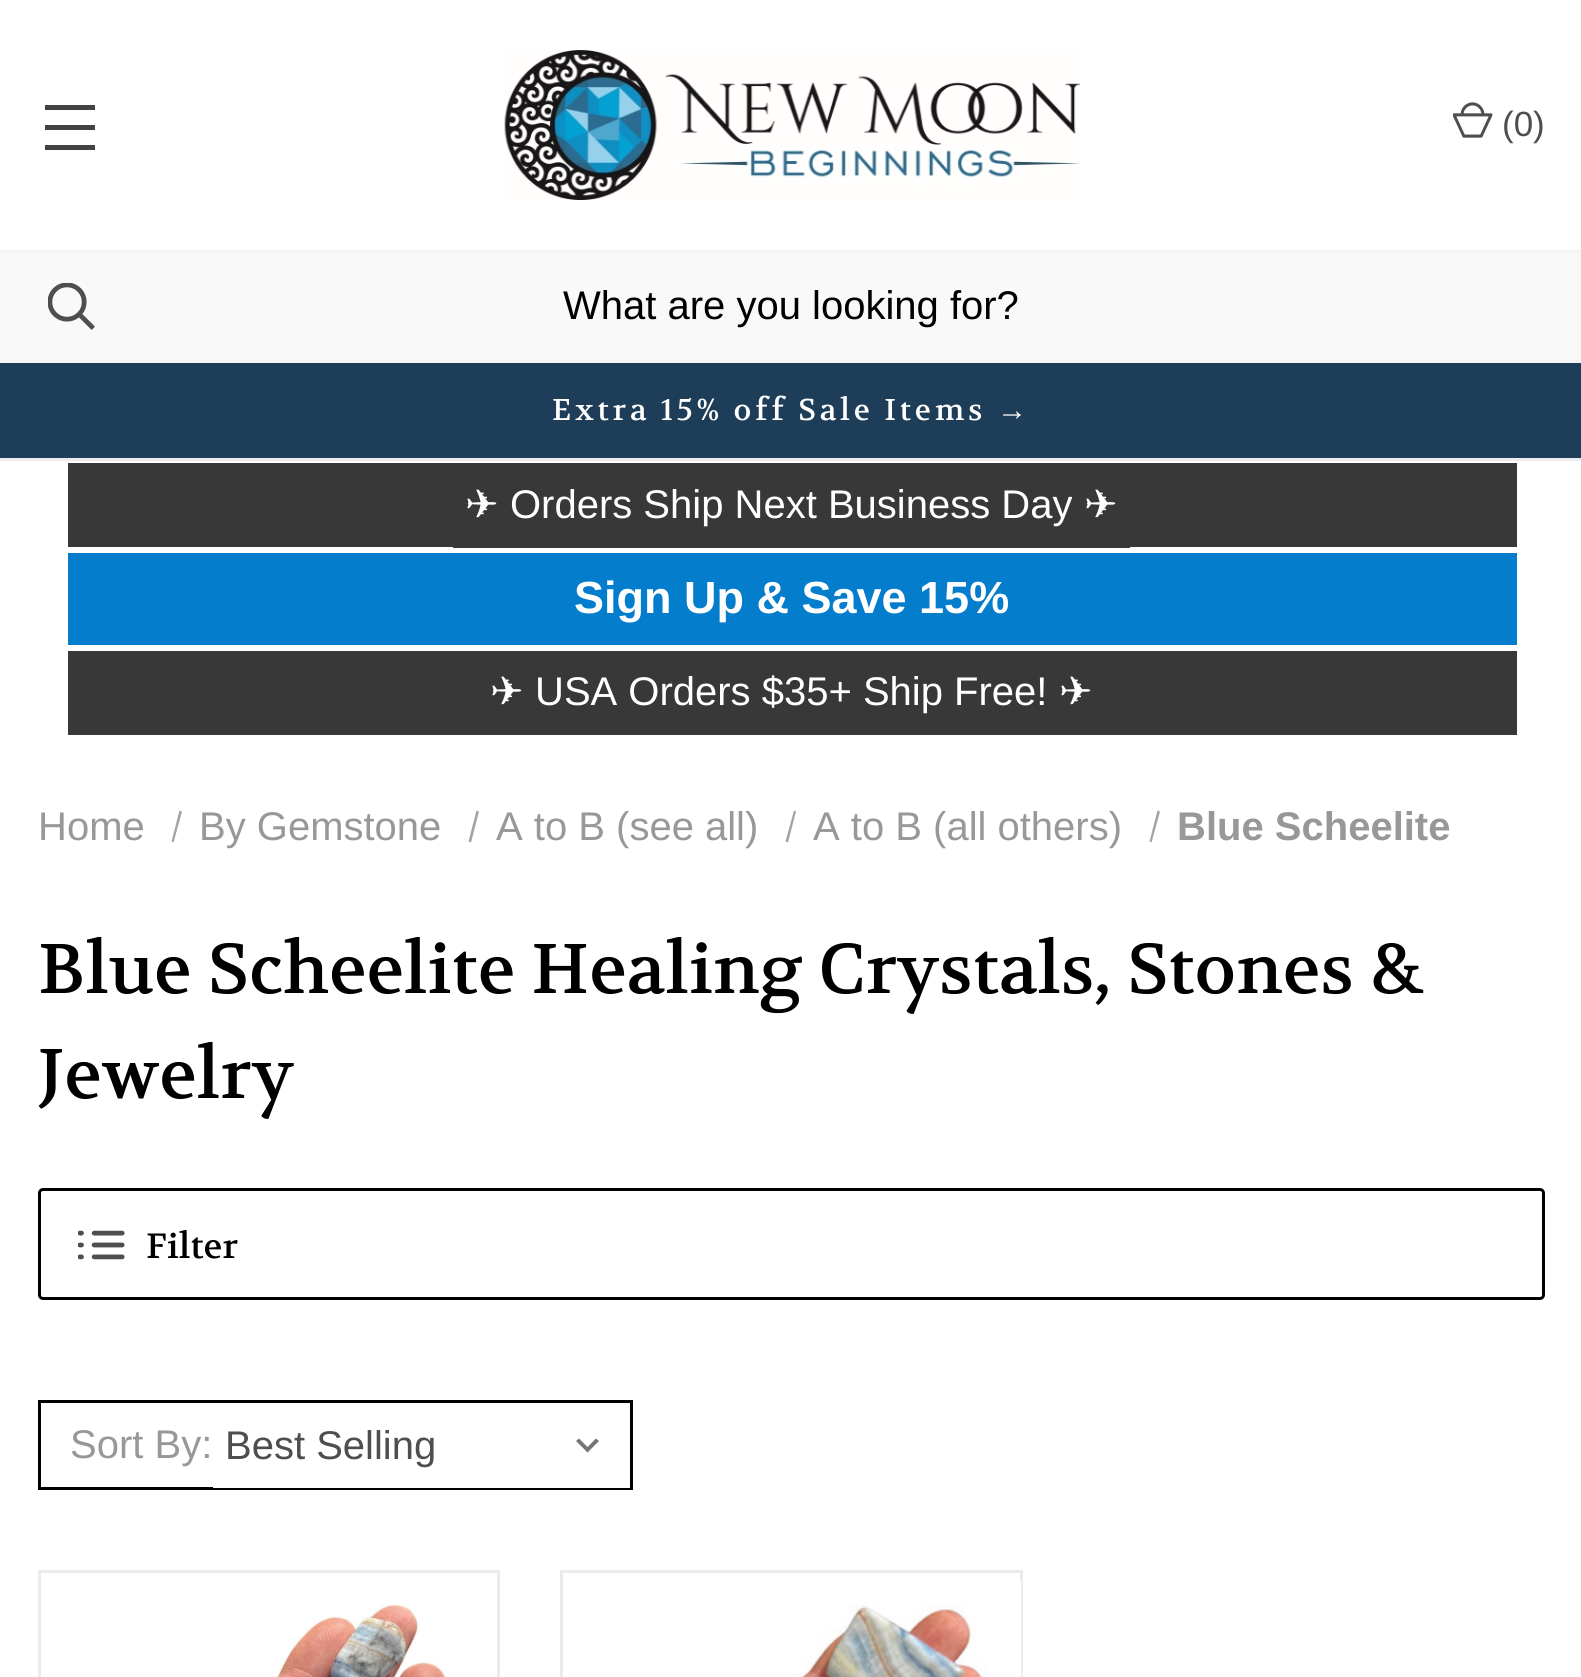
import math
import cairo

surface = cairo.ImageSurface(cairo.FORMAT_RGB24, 1581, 1677)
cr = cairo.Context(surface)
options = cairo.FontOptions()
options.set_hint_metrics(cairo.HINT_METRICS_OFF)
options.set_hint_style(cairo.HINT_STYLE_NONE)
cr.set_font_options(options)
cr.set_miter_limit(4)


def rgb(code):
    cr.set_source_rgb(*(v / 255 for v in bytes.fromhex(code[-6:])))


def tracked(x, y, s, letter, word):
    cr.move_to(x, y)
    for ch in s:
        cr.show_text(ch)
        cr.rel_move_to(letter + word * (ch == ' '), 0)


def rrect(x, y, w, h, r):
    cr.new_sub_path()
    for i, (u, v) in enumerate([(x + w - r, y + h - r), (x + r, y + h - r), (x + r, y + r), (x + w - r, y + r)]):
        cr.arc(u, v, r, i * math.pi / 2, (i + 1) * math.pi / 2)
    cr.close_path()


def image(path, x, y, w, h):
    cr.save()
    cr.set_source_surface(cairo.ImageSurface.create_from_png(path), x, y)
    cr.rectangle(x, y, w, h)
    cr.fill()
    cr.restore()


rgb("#ffffff")
cr.paint()
for x, y, w, h, color in [
    (0, 458, 1581, 3, "#ebebeb"),
    (45, 125, 50, 5, "#424242"),
    (45, 105, 50, 5, "#424242"),
    (45, 145, 50, 5, "#424242"),
]:
    rgb(color)
    cr.rectangle(x, y, w, h)
    cr.fill()
image("img/1.png", 504, 50, 576, 150)
image("img/2.png", 1453, 102, 40, 36)
rgb("#f9f9f9")
cr.rectangle(0, 253, 1581, 107)
cr.fill()
image("img/3.png", 48, 283, 47, 47)
for x, y, w, h, color in [
    (0, 250, 1581, 3, "#f5f5f5"),
    (0, 360, 1581, 3, "#f5f5f5"),
    (0, 363, 1581, 95, "#1e3d58"),
    (68, 463, 1449, 84, "#383838"),
    (453, 547, 677, 1, "#383838"),
    (68, 553, 1449, 92, "#057dcd"),
    (68, 651, 1449, 84, "#383838"),
]:
    rgb(color)
    cr.rectangle(x, y, w, h)
    cr.fill()
rgb("#a3a3a3")
cr.new_path()
cr.move_to(179.5, 810.5)
cr.line_to(182, 811.5)
cr.line_to(173.5, 842.5)
cr.line_to(171.5, 841.5)
cr.close_path()
cr.fill()
cr.new_path()
cr.move_to(476.5, 810.5)
cr.line_to(479, 811.5)
cr.line_to(471, 842.5)
cr.line_to(468.5, 841.5)
cr.close_path()
cr.fill()
cr.new_path()
cr.move_to(794, 810.5)
cr.line_to(796, 811.5)
cr.line_to(788, 842.5)
cr.line_to(785.5, 841.5)
cr.close_path()
cr.fill()
cr.new_path()
cr.move_to(1157.5, 810.5)
cr.line_to(1160, 811.5)
cr.line_to(1151.5, 842.5)
cr.line_to(1149.5, 841.5)
cr.close_path()
cr.fill()
rrect(39.5, 1189.5, 1504, 109, 3.5)
rgb("#000000")
cr.set_line_width(3)
cr.stroke()
image("img/4.png", 78, 1230, 47, 30)
cr.rectangle(39.5, 1401.5, 592, 87)
cr.stroke()
rgb("#ffffff")
cr.rectangle(213, 1487, 417, 1)
cr.fill()
rgb("#757575")
cr.new_path()
cr.move_to(596, 1438.5)
cr.line_to(587.5, 1447)
cr.line_to(579, 1438.5)
cr.line_to(576, 1441)
cr.line_to(587.5, 1452.5)
cr.line_to(599, 1441)
cr.close_path()
cr.fill()
cr.rectangle(39.5, 1571.5, 459, 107)
rgb("#ebebeb")
cr.stroke()
image("img/5.png", 273, 1604, 173, 73)
cr.rectangle(561.5, 1571.5, 460, 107)
cr.stroke()
image("img/6.png", 793, 1581, 229, 96)
cr.select_font_face("Liberation Sans")
cr.set_font_size(35)
rgb("#4e4e4e")
cr.move_to(1502, 136)
cr.show_text("(0)")
cr.set_font_size(40)
rgb("#000000")
cr.move_to(563, 319)
cr.show_text("What are you looking for?")
cr.select_font_face("Volkhov")
cr.set_font_size(30)
rgb("#ffffff")
tracked(552, 420, "Extra 15% off Sale Items", 3.75, 0)
cr.select_font_face("Liberation Serif")
tracked(997, 420, "→", 3.75, 0)
cr.select_font_face("DejaVu Sans")
cr.set_font_size(40)
cr.move_to(465, 518)
cr.show_text("✈")
cr.select_font_face("Liberation Sans")
cr.move_to(510, 518)
cr.show_text("Orders Ship Next Business Day")
cr.select_font_face("DejaVu Sans")
cr.move_to(1084, 518)
cr.show_text("✈")
cr.select_font_face("Liberation Sans", cairo.FONT_SLANT_NORMAL, cairo.FONT_WEIGHT_BOLD)
cr.set_font_size(45)
cr.move_to(574, 613)
cr.show_text("Sign Up & Save 15%")
cr.select_font_face("DejaVu Sans")
cr.set_font_size(40)
cr.move_to(490, 705)
cr.show_text("✈")
cr.select_font_face("Liberation Sans")
cr.move_to(535, 705)
cr.show_text("USA Orders $35+ Ship Free!")
cr.select_font_face("DejaVu Sans")
cr.move_to(1059, 705)
cr.show_text("✈")
cr.select_font_face("Liberation Sans")
rgb("#989898")
for x, y, s in [
    (38, 840, "Home"),
    (199, 840, "By Gemstone"),
    (496, 840, "A to B (see all)"),
    (813, 840, "A to B (all others)"),
]:
    cr.move_to(x, y)
    cr.show_text(s)
cr.select_font_face("Liberation Sans", cairo.FONT_SLANT_NORMAL, cairo.FONT_WEIGHT_BOLD)
cr.move_to(1177, 840)
cr.show_text("Blue Scheelite")
cr.select_font_face("Volkhov")
cr.set_font_size(70)
rgb("#000000")
cr.move_to(38, 993)
cr.show_text("Blue Scheelite Healing Crystals, Stones &")
cr.move_to(38, 1098)
cr.show_text("Jewelry")
cr.set_font_size(35)
cr.move_to(146, 1258)
cr.show_text("Filter")
cr.select_font_face("Liberation Sans")
cr.set_font_size(40)
rgb("#989898")
cr.move_to(70, 1458)
cr.show_text("Sort By:")
rgb("#4e4e4e")
cr.move_to(225, 1459)
cr.show_text("Best Selling")
surface.write_to_png("page.png")
